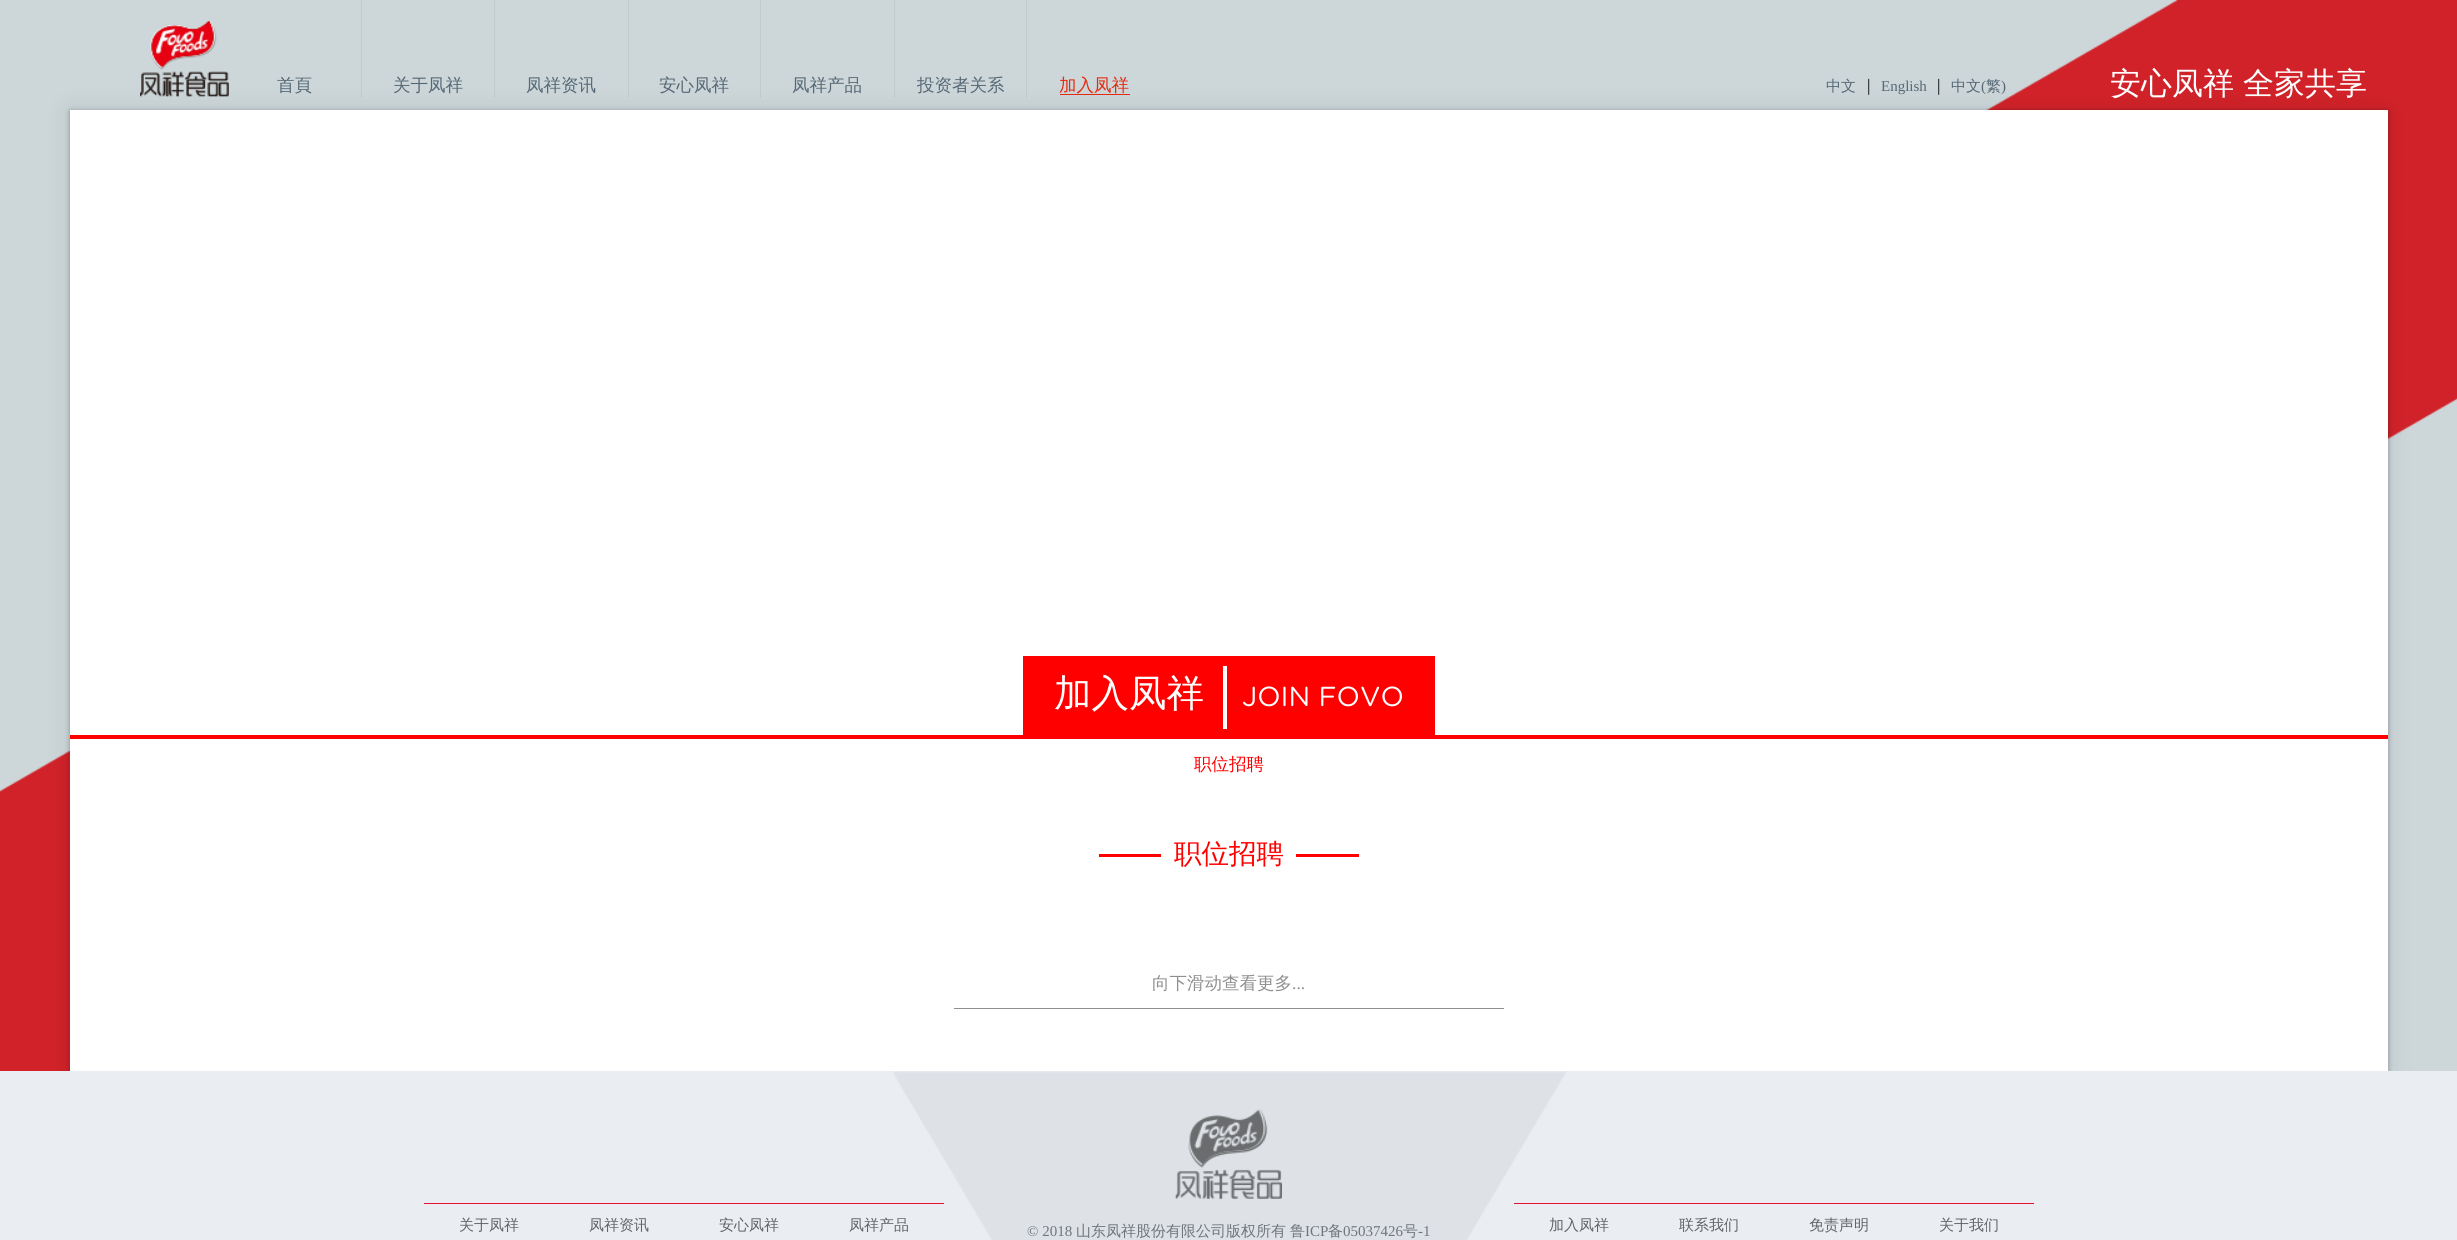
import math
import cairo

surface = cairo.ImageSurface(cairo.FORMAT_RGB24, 2457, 1240)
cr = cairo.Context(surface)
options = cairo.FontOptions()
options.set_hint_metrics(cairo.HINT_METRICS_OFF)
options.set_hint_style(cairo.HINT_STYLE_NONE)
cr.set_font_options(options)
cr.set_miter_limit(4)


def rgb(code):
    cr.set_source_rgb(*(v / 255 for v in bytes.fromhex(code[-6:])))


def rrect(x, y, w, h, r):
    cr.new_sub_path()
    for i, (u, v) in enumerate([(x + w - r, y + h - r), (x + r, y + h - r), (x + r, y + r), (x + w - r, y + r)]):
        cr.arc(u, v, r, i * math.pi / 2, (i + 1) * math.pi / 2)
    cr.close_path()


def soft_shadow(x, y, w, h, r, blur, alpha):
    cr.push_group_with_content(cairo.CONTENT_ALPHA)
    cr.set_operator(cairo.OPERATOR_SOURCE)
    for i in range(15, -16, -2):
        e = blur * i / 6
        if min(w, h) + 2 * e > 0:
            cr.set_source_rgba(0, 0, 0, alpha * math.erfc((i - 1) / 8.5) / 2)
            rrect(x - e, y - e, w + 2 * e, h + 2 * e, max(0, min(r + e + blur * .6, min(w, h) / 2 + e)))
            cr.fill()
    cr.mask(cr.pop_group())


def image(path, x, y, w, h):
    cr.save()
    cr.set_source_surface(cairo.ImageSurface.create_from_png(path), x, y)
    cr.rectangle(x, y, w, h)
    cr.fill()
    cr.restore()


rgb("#cdd7da")
cr.paint()
image("img/1.png", 1986, 0, 471, 439)
image("img/3.png", 0, 750, 70, 321)
rgb("#000000")
soft_shadow(70, 110, 2318, 961, 0, 12.5, 0.1)
image("img/2.png", 140, 20, 89, 77)
cr.set_source_rgba(0.631, 0.608, 0.608, 0.22)
cr.rectangle(361, 0, 1, 98)
cr.fill()
cr.rectangle(494, 0, 1, 98)
cr.fill()
cr.rectangle(628, 0, 1, 98)
cr.fill()
cr.rectangle(760, 0, 1, 98)
cr.fill()
cr.rectangle(894, 0, 1, 98)
cr.fill()
cr.rectangle(1026, 0, 1, 98)
cr.fill()
rgb("#e62a0d")
cr.rectangle(1060, 94, 70, 1)
cr.fill()
rgb("#000000")
soft_shadow(70, 111, 2318, 962, 0, 2.5, 0.3)
for x, y, w, h, color in [
    (70, 110, 2318, 961, "#ffffff"),
    (70, 735, 2318, 4, "#ff0000"),
    (1023, 656, 412, 79, "#ff0000"),
    (1223, 666, 4, 63, "#ffffff"),
    (1099, 854, 62, 3, "#ff0000"),
    (1296, 854, 63, 3, "#ff0000"),
    (954, 1008, 550, 1, "#8f8f8f"),
    (0, 1071, 2457, 169, "#eaeef2"),
]:
    rgb(color)
    cr.rectangle(x, y, w, h)
    cr.fill()
image("img/4.png", 893, 1071, 673, 169)
rgb("#e3122d")
cr.rectangle(424, 1203, 520, 1)
cr.fill()
image("img/5.png", 1175, 1109, 107, 90)
cr.rectangle(1514, 1203, 520, 1)
cr.fill()
cr.select_font_face("WenQuanYi Zen Hei Medium")
cr.set_font_size(17.5)
rgb("#566875")
for x, y, s in [
    (277, 91, "首頁"),
    (393, 91, "关于凤祥"),
    (526, 91, "凤祥资讯"),
    (659, 91, "安心凤祥"),
    (792, 91, "凤祥产品"),
    (917, 91, "投资者关系"),
]:
    cr.move_to(x, y)
    cr.show_text(s)
rgb("#e62a0d")
cr.move_to(1059, 91)
cr.show_text("加入凤祥")
cr.set_font_size(15)
rgb("#566875")
cr.move_to(1826, 91)
cr.show_text("中文")
cr.select_font_face("Liberation Serif")
cr.set_font_size(17.5)
rgb("#000000")
cr.move_to(1867, 91)
cr.show_text("|")
cr.set_font_size(15)
rgb("#566875")
cr.move_to(1881, 91)
cr.show_text("English")
cr.set_font_size(17.5)
rgb("#000000")
cr.move_to(1937, 91)
cr.show_text("|")
cr.select_font_face("WenQuanYi Zen Hei Medium")
cr.set_font_size(15)
rgb("#566875")
cr.move_to(1951, 91)
cr.show_text("中文")
cr.select_font_face("Liberation Serif")
cr.move_to(1981, 91)
cr.show_text("(")
cr.select_font_face("WenQuanYi Zen Hei Medium")
cr.move_to(1986, 91)
cr.show_text("繁")
cr.select_font_face("Liberation Serif")
cr.move_to(2001, 91)
cr.show_text(")")
cr.select_font_face("WenQuanYi Zen Hei Medium")
cr.set_font_size(31)
rgb("#ffffff")
cr.move_to(2110, 94)
cr.show_text("安心凤祥")
cr.move_to(2243, 94)
cr.show_text("全家共享")
cr.set_font_size(37.5)
cr.move_to(1054, 706)
cr.show_text("加入凤祥")
cr.select_font_face("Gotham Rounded")
cr.set_font_size(27.5)
cr.move_to(1242, 706)
cr.show_text("JOIN FOVO")
cr.select_font_face("WenQuanYi Zen Hei Medium")
cr.set_font_size(17.5)
rgb("#ff0000")
cr.move_to(1194, 770)
cr.show_text("职位招聘")
cr.set_font_size(27.5)
cr.move_to(1174, 863)
cr.show_text("职位招聘")
cr.set_font_size(17.5)
rgb("#8f8f8f")
cr.move_to(1152, 989)
cr.show_text("向下滑动查看更多")
cr.select_font_face("Liberation Serif")
cr.move_to(1292, 989)
cr.show_text("...")
cr.select_font_face("WenQuanYi Zen Hei Medium")
cr.set_font_size(15)
rgb("#616468")
for x, y, s in [
    (459, 1230, "关于凤祥"),
    (589, 1230, "凤祥资讯"),
    (719, 1230, "安心凤祥"),
    (849, 1230, "凤祥产品"),
]:
    cr.move_to(x, y)
    cr.show_text(s)
cr.select_font_face("Liberation Serif")
rgb("#6f757b")
cr.move_to(1027, 1236)
cr.show_text("© 2018")
cr.select_font_face("WenQuanYi Zen Hei Medium")
cr.move_to(1076, 1236)
cr.show_text("山东凤祥股份有限公司版权所有")
cr.move_to(1290, 1236)
cr.show_text("鲁")
cr.select_font_face("Liberation Serif")
cr.move_to(1305, 1236)
cr.show_text("ICP")
cr.select_font_face("WenQuanYi Zen Hei Medium")
cr.move_to(1328, 1236)
cr.show_text("备")
cr.select_font_face("Liberation Serif")
cr.move_to(1343, 1236)
cr.show_text("05037426")
cr.select_font_face("WenQuanYi Zen Hei Medium")
cr.move_to(1403, 1236)
cr.show_text("号")
cr.select_font_face("Liberation Serif")
cr.move_to(1418, 1236)
cr.show_text("-1")
cr.select_font_face("WenQuanYi Zen Hei Medium")
rgb("#616468")
for x, y, s in [
    (1549, 1230, "加入凤祥"),
    (1679, 1230, "联系我们"),
    (1809, 1230, "免责声明"),
    (1939, 1230, "关于我们"),
]:
    cr.move_to(x, y)
    cr.show_text(s)
surface.write_to_png("page.png")
